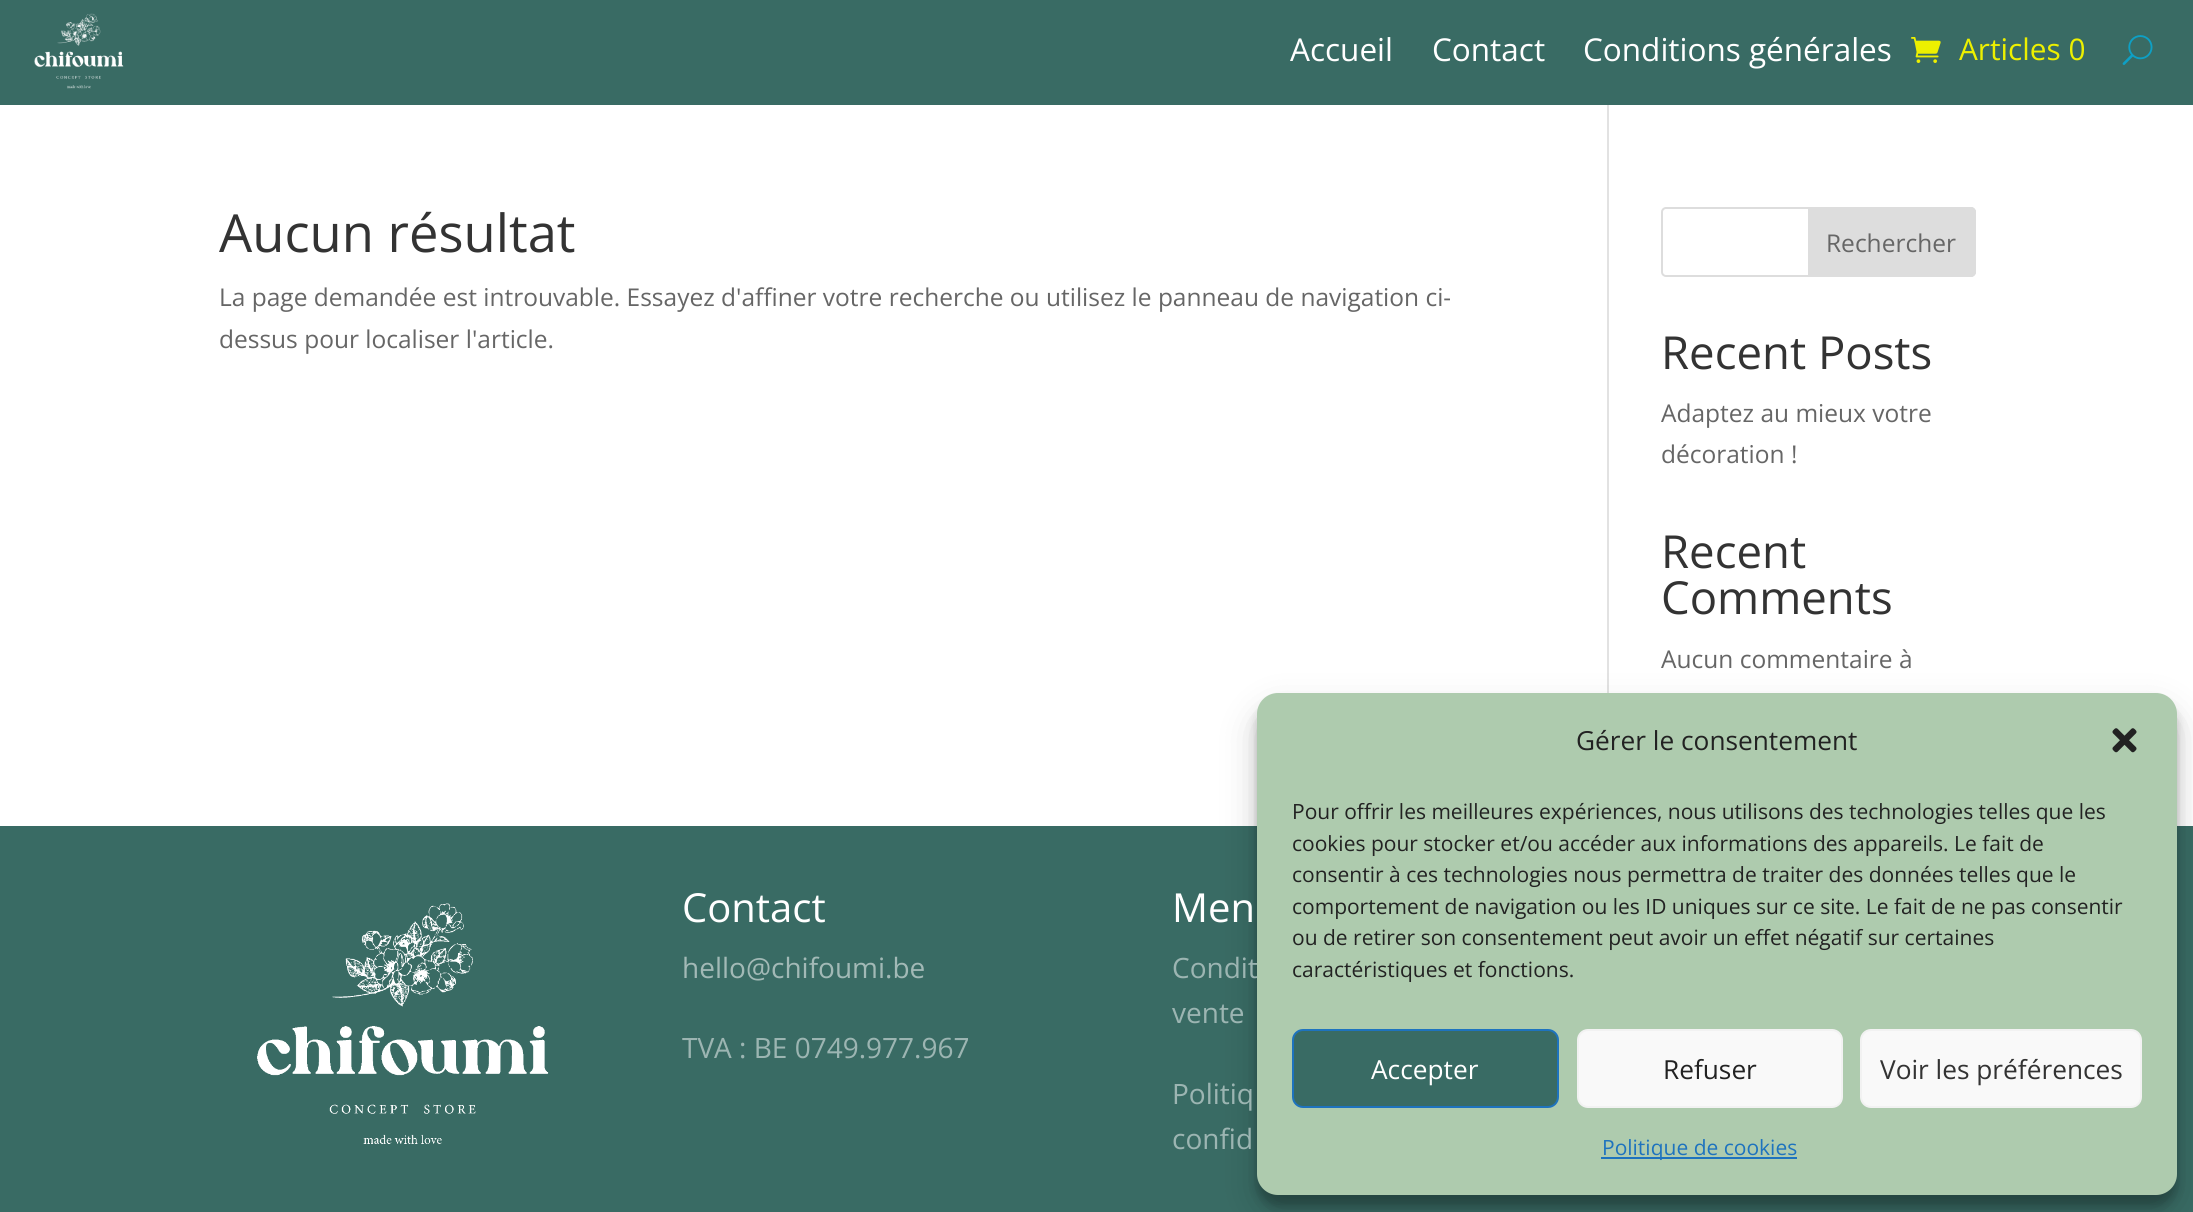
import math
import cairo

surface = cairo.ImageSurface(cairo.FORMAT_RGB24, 2193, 1212)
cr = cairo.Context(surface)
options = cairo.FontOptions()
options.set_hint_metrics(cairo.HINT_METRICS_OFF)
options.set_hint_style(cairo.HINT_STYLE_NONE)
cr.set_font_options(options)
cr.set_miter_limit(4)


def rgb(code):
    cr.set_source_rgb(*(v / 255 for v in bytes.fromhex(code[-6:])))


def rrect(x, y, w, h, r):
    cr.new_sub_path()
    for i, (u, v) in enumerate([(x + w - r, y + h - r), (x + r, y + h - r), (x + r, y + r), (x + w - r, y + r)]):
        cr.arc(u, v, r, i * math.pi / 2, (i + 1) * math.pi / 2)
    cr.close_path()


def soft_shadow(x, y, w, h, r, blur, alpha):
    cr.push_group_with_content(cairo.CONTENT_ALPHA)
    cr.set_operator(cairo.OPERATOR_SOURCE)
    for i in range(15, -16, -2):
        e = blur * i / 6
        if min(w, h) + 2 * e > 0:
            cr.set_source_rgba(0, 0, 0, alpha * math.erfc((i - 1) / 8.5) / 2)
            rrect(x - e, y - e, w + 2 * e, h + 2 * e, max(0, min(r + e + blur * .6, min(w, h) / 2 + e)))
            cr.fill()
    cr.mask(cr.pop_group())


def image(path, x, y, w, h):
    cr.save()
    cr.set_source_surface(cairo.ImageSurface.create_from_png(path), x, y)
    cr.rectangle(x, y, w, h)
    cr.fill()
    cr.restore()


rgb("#ffffff")
cr.paint()
rgb("#396b64")
cr.rectangle(0, 0, 2193, 105)
cr.fill()
image("img/1.png", 34, 13, 90, 76)
image("img/2.png", 1911, 37, 30, 26)
image("img/3.png", 2122, 35, 31, 30)
rgb("#e2e2e2")
cr.rectangle(1607, 105, 2, 588)
cr.fill()
rrect(1662, 208, 313, 68, 4)
rgb("#dddddd")
cr.stroke()
cr.new_path()
cr.move_to(1809, 208)
cr.line_to(1971, 208)
cr.curve_to(1973, 208, 1975, 210, 1975, 212)
cr.line_to(1975, 272)
cr.curve_to(1975, 274, 1973, 276, 1971, 276)
cr.line_to(1809, 276)
cr.close_path()
cr.fill_preserve()
cr.stroke()
rgb("#396b64")
cr.rectangle(0, 826, 2193, 386)
cr.fill()
image("img/4.png", 257, 903, 292, 241)
rgb("#000000")
soft_shadow(1257, 704, 920, 502, 21, 5, 0.23)
soft_shadow(1257, 711, 920, 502, 21, 17.5, 0.19)
rgb("#aecbae")
rrect(1257, 693, 920, 502, 21)
cr.fill()
image("img/5.png", 2112, 728, 25, 25)
rgb("#396b64")
rrect(1293, 1030, 265, 77, 10)
cr.fill_preserve()
rgb("#1e73be")
cr.stroke()
rgb("#f9f9f9")
rrect(1578, 1030, 264, 77, 10)
cr.fill_preserve()
rgb("#f2f2f2")
cr.stroke()
rgb("#f9f9f9")
rrect(1861, 1030, 280, 77, 10)
cr.fill_preserve()
rgb("#f2f2f2")
cr.stroke()
rgb("#1e73be")
cr.rectangle(1601, 1157, 196, 2)
cr.fill()
cr.select_font_face("Open Sans")
cr.set_font_size(31.5)
rgb("#ffffff")
for x, y, s in [
    (1290, 61, "Accueil"),
    (1432, 61, "Contact"),
    (1583, 61, "Conditions générales"),
]:
    cr.move_to(x, y)
    cr.show_text(s)
cr.set_font_size(29.75)
rgb("#edf000")
cr.move_to(1959, 60)
cr.show_text("Articles 0")
cr.set_font_size(52.5)
rgb("#333333")
cr.move_to(219, 252)
cr.show_text("Aucun résultat")
cr.set_font_size(24.5)
rgb("#666666")
for x, y, s in [
    (219, 306, "La page demandée est introuvable. Essayez d'affiner votre recherche ou utilisez le panneau de navigation ci-"),
    (219, 348, "dessus pour localiser l'article."),
    (1826, 252, "Rechercher"),
]:
    cr.move_to(x, y)
    cr.show_text(s)
cr.set_font_size(45.5)
rgb("#333333")
cr.move_to(1661, 369)
cr.show_text("Recent Posts")
cr.set_font_size(24.5)
rgb("#666666")
cr.move_to(1661, 422)
cr.show_text("Adaptez au mieux votre")
cr.move_to(1661, 463)
cr.show_text("décoration !")
cr.set_font_size(45.5)
rgb("#333333")
cr.move_to(1661, 568)
cr.show_text("Recent")
cr.move_to(1661, 614)
cr.show_text("Comments")
cr.set_font_size(24.5)
rgb("#666666")
cr.move_to(1661, 668)
cr.show_text("Aucun commentaire à")
cr.set_font_size(40)
rgb("#ffffff")
cr.move_to(682, 922)
cr.show_text("Contact")
cr.set_font_size(28)
rgb("#a2b9b6")
cr.move_to(682, 978)
cr.show_text("hello@chifoumi.be")
rgb("#9cb5b2")
cr.move_to(682, 1058)
cr.show_text("TVA : BE 0749.977.967")
cr.set_font_size(40)
rgb("#ffffff")
cr.move_to(1172, 922)
cr.show_text("Men")
cr.set_font_size(28)
rgb("#9cb5b2")
for x, y, s in [
    (1172, 978, "Condit"),
    (1172, 1023, "vente"),
    (1172, 1104, "Politiq"),
    (1172, 1149, "confid"),
]:
    cr.move_to(x, y)
    cr.show_text(s)
cr.set_font_size(26.25)
rgb("#222222")
cr.move_to(1576, 750)
cr.show_text("Gérer le consentement")
cr.set_font_size(21)
for x, y, s in [
    (1292, 819, "Pour offrir les meilleures expériences, nous utilisons des technologies telles que les"),
    (1292, 851, "cookies pour stocker et/ou accéder aux informations des appareils. Le fait de"),
    (1292, 882, "consentir à ces technologies nous permettra de traiter des données telles que le"),
    (1292, 914, "comportement de navigation ou les ID uniques sur ce site. Le fait de ne pas consentir"),
    (1292, 945, "ou de retirer son consentement peut avoir un effet négatif sur certaines"),
    (1292, 977, "caractéristiques et fonctions."),
]:
    cr.move_to(x, y)
    cr.show_text(s)
cr.set_font_size(26.25)
rgb("#ffffff")
cr.move_to(1371, 1079)
cr.show_text("Accepter")
rgb("#222222")
cr.move_to(1663, 1079)
cr.show_text("Refuser")
rgb("#333333")
cr.move_to(1880, 1079)
cr.show_text("Voir les préférences")
cr.set_font_size(21)
rgb("#1e73be")
cr.move_to(1602, 1155)
cr.show_text("Politique de cookies")
surface.write_to_png("page.png")
